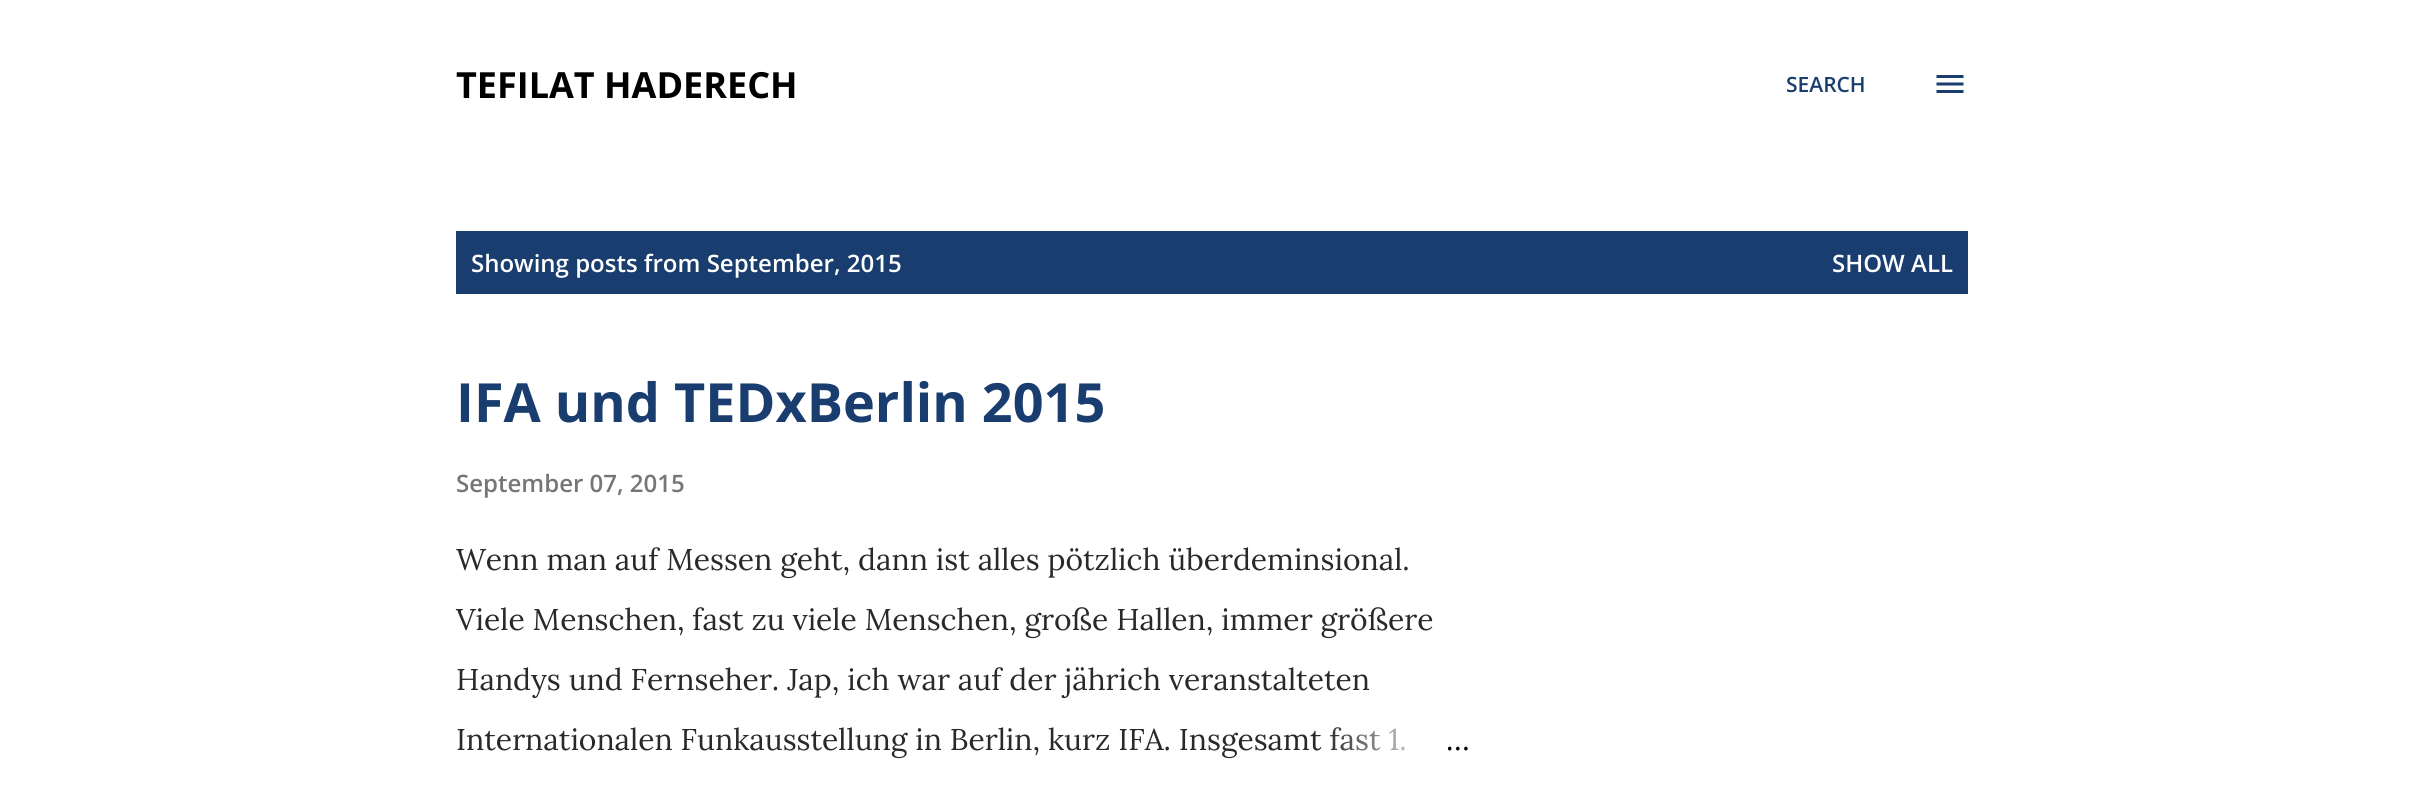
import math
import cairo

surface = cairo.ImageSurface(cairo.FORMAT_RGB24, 2423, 809)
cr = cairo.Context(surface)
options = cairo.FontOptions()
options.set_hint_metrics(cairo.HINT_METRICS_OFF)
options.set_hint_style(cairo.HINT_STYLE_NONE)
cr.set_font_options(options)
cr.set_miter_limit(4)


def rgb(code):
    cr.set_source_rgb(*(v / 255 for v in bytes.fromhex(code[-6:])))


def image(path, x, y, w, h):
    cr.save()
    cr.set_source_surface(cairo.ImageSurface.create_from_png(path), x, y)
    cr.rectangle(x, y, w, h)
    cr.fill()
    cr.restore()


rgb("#ffffff")
cr.paint()
image("img/1.png", 1936, 75, 28, 18)
rgb("#193d6f")
cr.rectangle(456, 231, 1512, 63)
cr.fill()
cr.select_font_face("Open Sans", cairo.FONT_SLANT_NORMAL, cairo.FONT_WEIGHT_BOLD)
cr.set_font_size(36)
rgb("#000000")
cr.move_to(456, 98)
cr.show_text("TEFILAT HADERECH")
cr.select_font_face("Open Sans SemiBold")
cr.set_font_size(21)
rgb("#193d6f")
cr.move_to(1786, 92)
cr.show_text("SEARCH")
cr.set_font_size(24)
rgb("#ffffff")
cr.move_to(471, 272)
cr.show_text("Showing posts from September, 2015")
cr.move_to(1832, 272)
cr.show_text("SHOW ALL")
cr.select_font_face("Open Sans", cairo.FONT_SLANT_NORMAL, cairo.FONT_WEIGHT_BOLD)
cr.set_font_size(54)
rgb("#193d6f")
cr.move_to(456, 422)
cr.show_text("IFA und TEDxBerlin 2015")
cr.select_font_face("Open Sans SemiBold")
cr.set_font_size(24)
rgb("#767676")
cr.move_to(456, 492)
cr.show_text("September 07, 2015")
cr.select_font_face("Lora")
cr.set_font_size(30)
rgb("#292929")
for x, y, s in [
    (456, 570, "Wenn man auf Messen geht, dann ist alles pötzlich überdeminsional."),
    (456, 630, "Viele Menschen, fast zu viele Menschen, große Hallen, immer größere"),
    (456, 690, "Handys und Fernseher. Jap, ich war auf der jährich veranstalteten"),
    (456, 750, "Internationalen Funkausstellung in Berlin, kurz IFA. Insgesamt fast 1."),
]:
    cr.move_to(x, y)
    cr.show_text(s)
gradient = cairo.LinearGradient(1470, 740, 1326, 740)
gradient.add_color_stop_rgba(0, 1, 1, 1, 1)
gradient.add_color_stop_rgba(0.2, 1, 1, 1, 1)
gradient.add_color_stop_rgba(1, 1, 1, 1, 0)
cr.set_source(gradient)
cr.rectangle(1330, 727, 75, 24)
cr.fill()
rgb("#000000")
cr.move_to(1446, 750)
cr.show_text("…")
surface.write_to_png("page.png")
